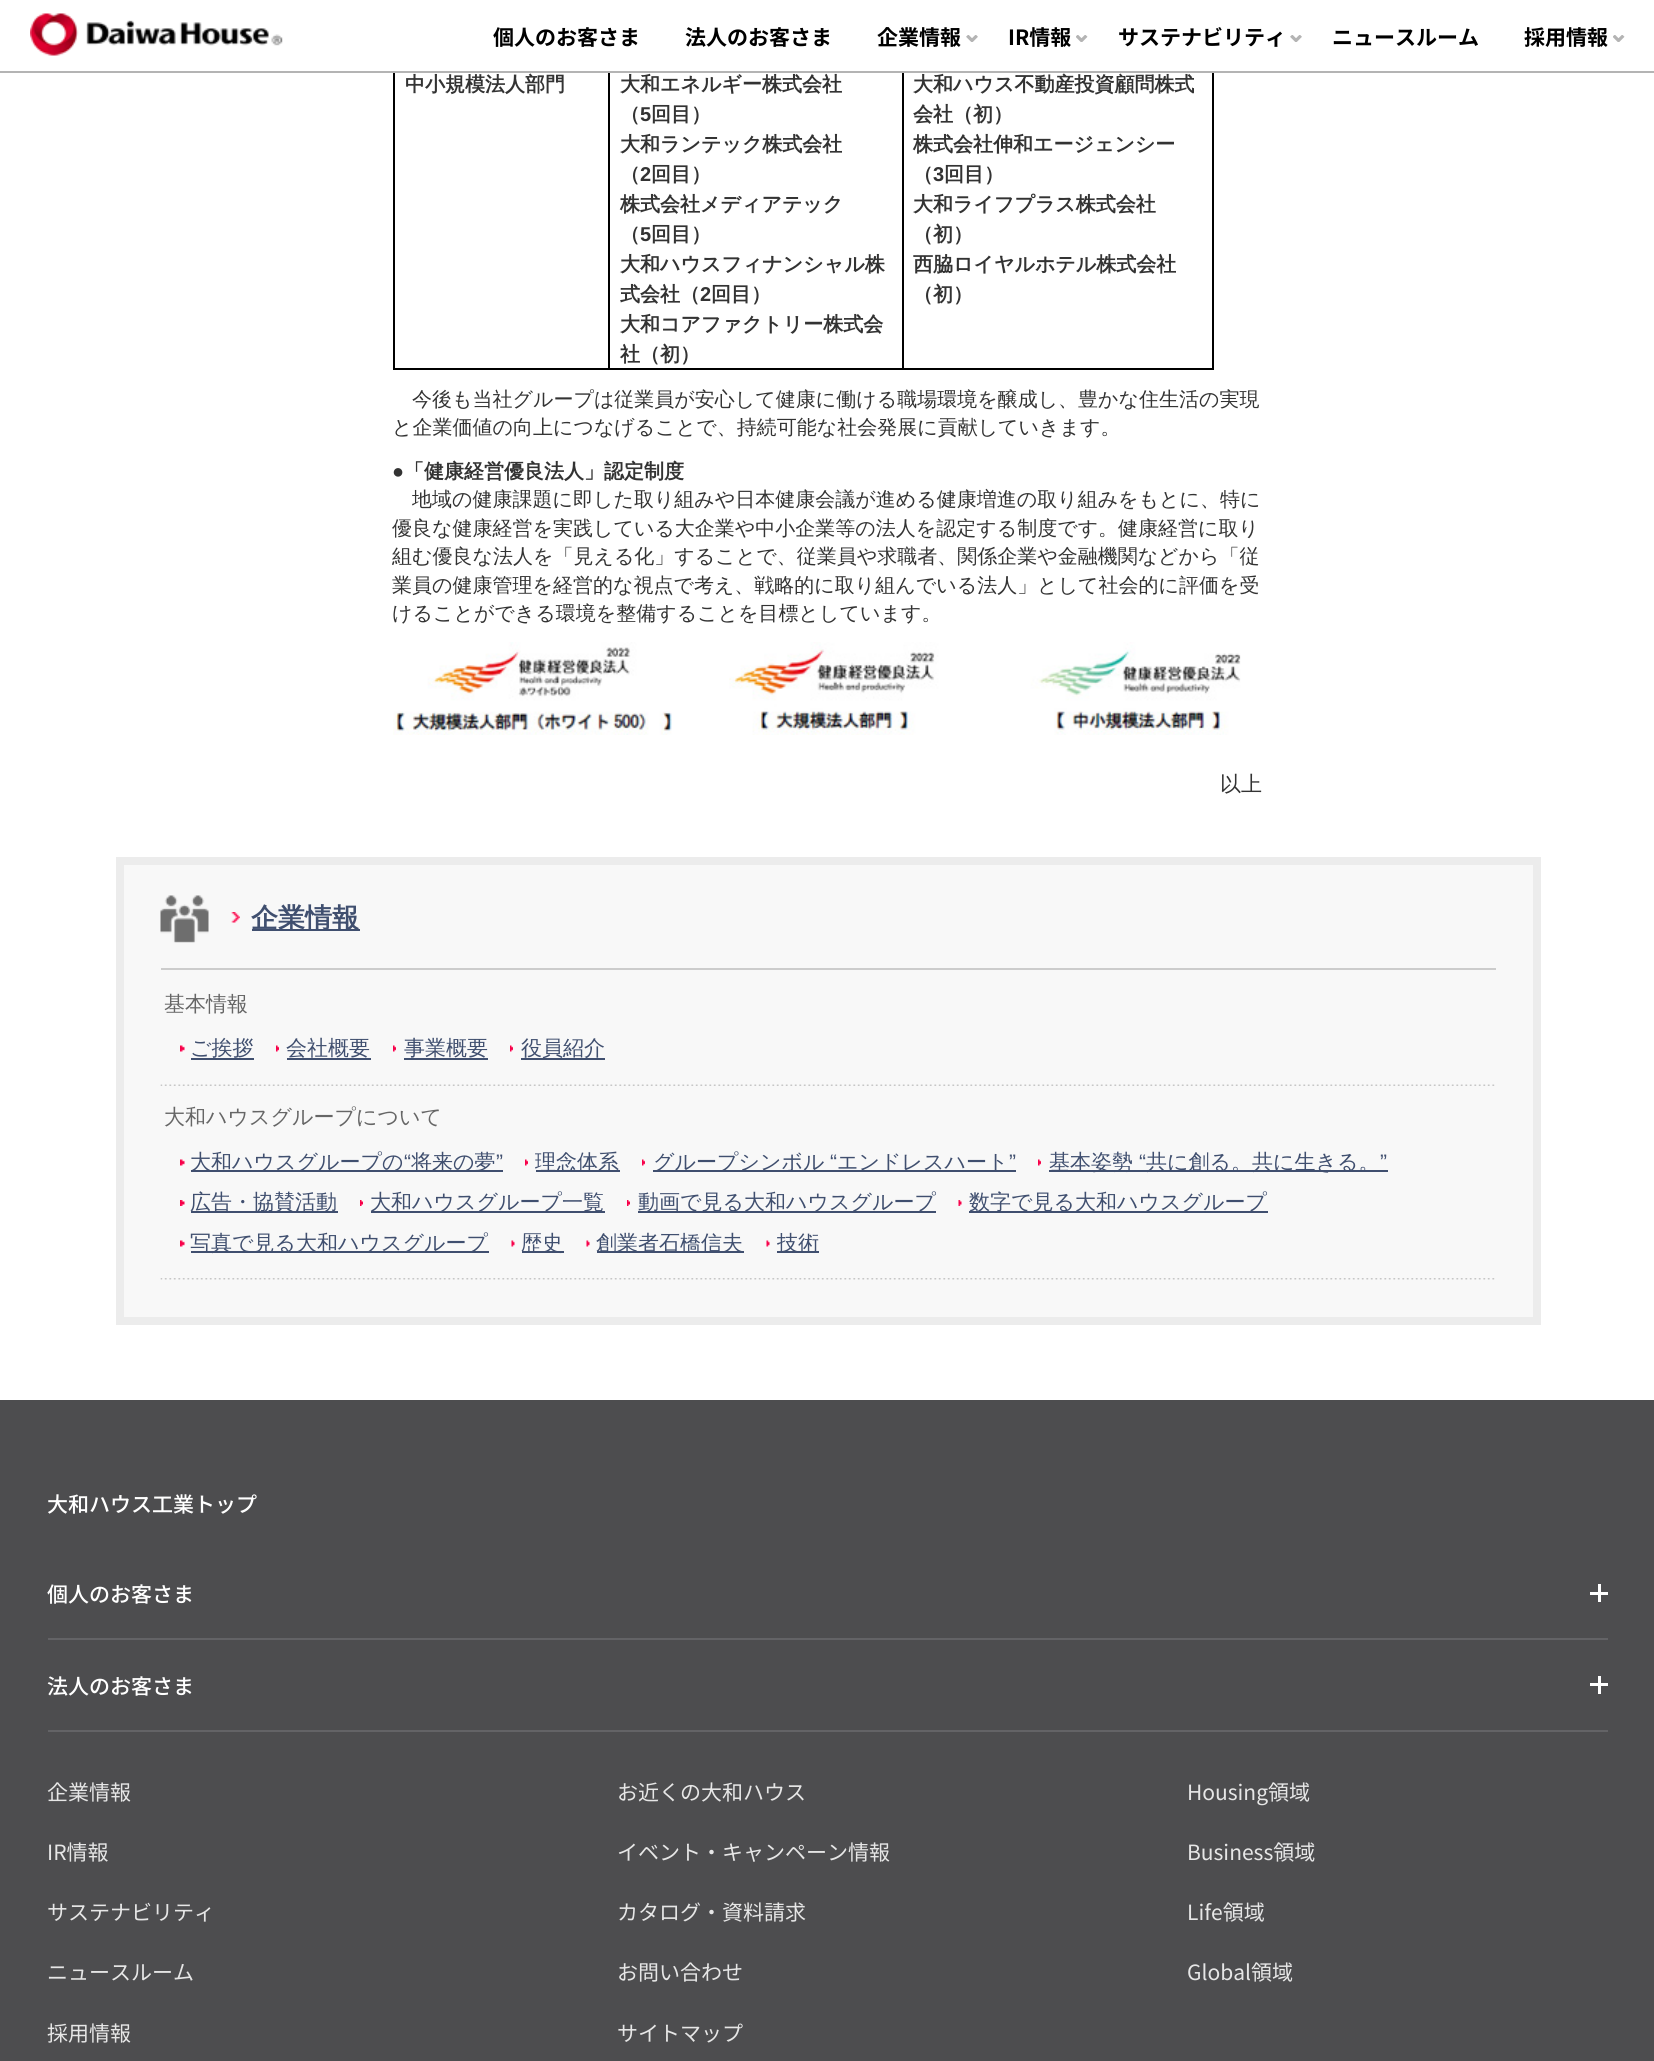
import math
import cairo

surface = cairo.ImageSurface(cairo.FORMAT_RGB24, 1654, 2061)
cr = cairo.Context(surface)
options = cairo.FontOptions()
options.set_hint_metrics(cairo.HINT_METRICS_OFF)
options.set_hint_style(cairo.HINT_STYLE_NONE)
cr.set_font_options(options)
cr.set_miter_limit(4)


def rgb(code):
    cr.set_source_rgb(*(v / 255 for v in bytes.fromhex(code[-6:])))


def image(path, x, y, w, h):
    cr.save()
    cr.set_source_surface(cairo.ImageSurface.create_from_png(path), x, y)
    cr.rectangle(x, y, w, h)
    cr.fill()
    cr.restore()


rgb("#ffffff")
cr.paint()
for x, y, w, h, color in [
    (1212, 66, 2, 303, "#000000"),
    (902, 368, 312, 2, "#000000"),
    (902, 66, 2, 303, "#000000"),
    (608, 368, 295, 2, "#000000"),
    (608, 66, 2, 303, "#000000"),
    (393, 368, 216, 2, "#000000"),
    (393, 66, 2, 303, "#000000"),
    (393, 66, 821, 5, "#ffffff"),
    (0, 71, 1654, 2, "#b4b4b4"),
]:
    rgb(color)
    cr.rectangle(x, y, w, h)
    cr.fill()
image("img/1.png", 30, 13, 253, 43)
image("img/2.png", 966, 35, 12, 7)
image("img/3.png", 1076, 35, 12, 7)
image("img/2.png", 1290, 35, 12, 7)
image("img/3.png", 1613, 35, 12, 7)
image("img/4.png", 393, 642, 848, 93)
rgb("#f8f8f8")
cr.rectangle(120, 861, 1417, 460)
cr.fill_preserve()
rgb("#ececec")
cr.set_line_width(8)
cr.stroke()
image("img/5.png", 160, 895, 49, 48)
rgb("#cccccc")
cr.rectangle(161, 968, 1335, 2)
cr.fill()
image("img/6.png", 231, 912, 9, 11)
rgb("#404f6f")
cr.rectangle(252, 929, 108, 2)
cr.fill()
image("img/7.png", 160, 1084, 1335, 2)
image("img/8.png", 180, 1045, 5, 7)
cr.rectangle(191, 1058, 63, 2)
cr.fill()
image("img/9.png", 276, 1045, 3, 7)
cr.rectangle(287, 1058, 84, 2)
cr.fill()
image("img/9.png", 393, 1045, 3, 7)
cr.rectangle(404, 1058, 84, 2)
cr.fill()
image("img/10.png", 510, 1045, 3, 7)
cr.rectangle(521, 1058, 84, 2)
cr.fill()
image("img/11.png", 160, 1278, 1335, 2)
image("img/8.png", 180, 1159, 5, 7)
cr.rectangle(191, 1170, 312, 2)
cr.fill()
image("img/9.png", 525, 1159, 3, 7)
cr.rectangle(536, 1170, 84, 2)
cr.fill()
image("img/10.png", 642, 1159, 3, 7)
cr.rectangle(653, 1170, 363, 2)
cr.fill()
image("img/9.png", 1038, 1159, 3, 7)
cr.rectangle(1049, 1170, 339, 2)
cr.fill()
image("img/12.png", 180, 1200, 5, 6)
cr.rectangle(191, 1211, 147, 2)
cr.fill()
image("img/13.png", 360, 1200, 3, 6)
cr.rectangle(371, 1211, 234, 2)
cr.fill()
image("img/14.png", 627, 1200, 3, 6)
cr.rectangle(638, 1211, 298, 2)
cr.fill()
image("img/15.png", 958, 1200, 4, 6)
cr.rectangle(969, 1211, 299, 2)
cr.fill()
image("img/8.png", 180, 1240, 5, 7)
cr.rectangle(191, 1251, 298, 2)
cr.fill()
image("img/16.png", 511, 1240, 4, 7)
cr.rectangle(522, 1251, 42, 2)
cr.fill()
image("img/16.png", 586, 1240, 4, 7)
cr.rectangle(597, 1251, 147, 2)
cr.fill()
image("img/16.png", 766, 1240, 4, 7)
for x, y, w, h, color in [
    (777, 1251, 42, 2, "#404f6f"),
    (0, 1400, 1654, 661, "#4d4d4f"),
    (48, 1638, 1560, 2, "#636366"),
    (1590, 1592, 18, 3, "#ffffff"),
    (1598, 1584, 3, 18, "#ffffff"),
    (48, 1730, 1560, 2, "#636366"),
    (1590, 1683, 18, 3, "#ffffff"),
    (1598, 1676, 3, 18, "#ffffff"),
]:
    rgb(color)
    cr.rectangle(x, y, w, h)
    cr.fill()
cr.select_font_face("Noto Sans JP", cairo.FONT_SLANT_NORMAL, cairo.FONT_WEIGHT_BOLD)
cr.set_font_size(21)
rgb("#000000")
for x, y, s in [
    (493, 45, "個人のお客さま"),
    (685, 45, "法人のお客さま"),
    (877, 45, "企業情報"),
    (1008, 45, "IR情報"),
    (1118, 45, "サステナビリティ"),
    (1332, 45, "ニュースルーム"),
    (1524, 45, "採用情報"),
]:
    cr.move_to(x, y)
    cr.show_text(s)
cr.select_font_face("WenQuanYi Zen Hei", cairo.FONT_SLANT_NORMAL, cairo.FONT_WEIGHT_BOLD)
cr.set_font_size(20)
rgb("#333333")
for x, y, s in [
    (405, 91, "中小規模法人部門"),
    (620, 91, "大和エネルギー株式会社"),
    (620, 121, "（"),
]:
    cr.move_to(x, y)
    cr.show_text(s)
cr.select_font_face("Liberation Sans", cairo.FONT_SLANT_NORMAL, cairo.FONT_WEIGHT_BOLD)
cr.move_to(640, 121)
cr.show_text("5")
cr.select_font_face("WenQuanYi Zen Hei", cairo.FONT_SLANT_NORMAL, cairo.FONT_WEIGHT_BOLD)
for x, y, s in [
    (651, 121, "回目）"),
    (620, 151, "大和ランテック株式会社"),
    (620, 181, "（"),
]:
    cr.move_to(x, y)
    cr.show_text(s)
cr.select_font_face("Liberation Sans", cairo.FONT_SLANT_NORMAL, cairo.FONT_WEIGHT_BOLD)
cr.move_to(640, 181)
cr.show_text("2")
cr.select_font_face("WenQuanYi Zen Hei", cairo.FONT_SLANT_NORMAL, cairo.FONT_WEIGHT_BOLD)
for x, y, s in [
    (651, 181, "回目）"),
    (620, 211, "株式会社メディアテック"),
    (620, 241, "（"),
]:
    cr.move_to(x, y)
    cr.show_text(s)
cr.select_font_face("Liberation Sans", cairo.FONT_SLANT_NORMAL, cairo.FONT_WEIGHT_BOLD)
cr.move_to(640, 241)
cr.show_text("5")
cr.select_font_face("WenQuanYi Zen Hei", cairo.FONT_SLANT_NORMAL, cairo.FONT_WEIGHT_BOLD)
for x, y, s in [
    (651, 241, "回目）"),
    (620, 271, "大和ハウスフィナンシャル株"),
    (620, 301, "式会社（"),
]:
    cr.move_to(x, y)
    cr.show_text(s)
cr.select_font_face("Liberation Sans", cairo.FONT_SLANT_NORMAL, cairo.FONT_WEIGHT_BOLD)
cr.move_to(700, 301)
cr.show_text("2")
cr.select_font_face("WenQuanYi Zen Hei", cairo.FONT_SLANT_NORMAL, cairo.FONT_WEIGHT_BOLD)
for x, y, s in [
    (711, 301, "回目）"),
    (620, 331, "大和コアファクトリー株式会"),
    (620, 361, "社（初）"),
    (913, 91, "大和ハウス不動産投資顧問株式"),
    (913, 121, "会社（初）"),
    (913, 151, "株式会社伸和エージェンシー"),
    (913, 181, "（"),
]:
    cr.move_to(x, y)
    cr.show_text(s)
cr.select_font_face("Liberation Sans", cairo.FONT_SLANT_NORMAL, cairo.FONT_WEIGHT_BOLD)
cr.move_to(933, 181)
cr.show_text("3")
cr.select_font_face("WenQuanYi Zen Hei", cairo.FONT_SLANT_NORMAL, cairo.FONT_WEIGHT_BOLD)
for x, y, s in [
    (944, 181, "回目）"),
    (913, 211, "大和ライフプラス株式会社"),
    (913, 241, "（初）"),
    (913, 271, "西脇ロイヤルホテル株式会社"),
    (913, 301, "（初）"),
]:
    cr.move_to(x, y)
    cr.show_text(s)
cr.select_font_face("WenQuanYi Zen Hei Medium")
cr.move_to(412, 406)
cr.show_text("今後も当社グループは従業員が安心して健康に働ける職場環境を醸成し、豊かな住生活の実現")
cr.move_to(392, 434)
cr.show_text("と企業価値の向上につなげることで、持続可能な社会発展に貢献していきます。")
cr.select_font_face("Liberation Sans", cairo.FONT_SLANT_NORMAL, cairo.FONT_WEIGHT_BOLD)
cr.move_to(392, 478)
cr.show_text("●")
cr.select_font_face("WenQuanYi Zen Hei", cairo.FONT_SLANT_NORMAL, cairo.FONT_WEIGHT_BOLD)
cr.move_to(404, 478)
cr.show_text("「健康経営優良法人」認定制度")
cr.select_font_face("WenQuanYi Zen Hei Medium")
for x, y, s in [
    (412, 506, "地域の健康課題に即した取り組みや日本健康会議が進める健康増進の取り組みをもとに、特に"),
    (392, 535, "優良な健康経営を実践している大企業や中小企業等の法人を認定する制度です。健康経営に取り"),
    (392, 563, "組む優良な法人を「見える化」することで、従業員や求職者、関係企業や金融機関などから「従"),
    (392, 592, "業員の健康管理を経営的な視点で考え、戦略的に取り組んでいる法人」として社会的に評価を受"),
    (392, 620, "けることができる環境を整備することを目標としています。"),
]:
    cr.move_to(x, y)
    cr.show_text(s)
cr.set_font_size(21)
cr.move_to(1220, 791)
cr.show_text("以上")
cr.select_font_face("WenQuanYi Zen Hei", cairo.FONT_SLANT_NORMAL, cairo.FONT_WEIGHT_BOLD)
cr.set_font_size(27)
rgb("#404f6f")
cr.move_to(251, 927)
cr.show_text("企業情報")
cr.select_font_face("WenQuanYi Zen Hei Medium")
cr.set_font_size(21)
rgb("#666666")
cr.move_to(164, 1011)
cr.show_text("基本情報")
rgb("#404f6f")
for x, y, s in [
    (190, 1055, "ご挨拶"),
    (286, 1055, "会社概要"),
    (404, 1055, "事業概要"),
    (521, 1055, "役員紹介"),
]:
    cr.move_to(x, y)
    cr.show_text(s)
rgb("#666666")
cr.move_to(164, 1124)
cr.show_text("大和ハウスグループについて")
rgb("#404f6f")
cr.move_to(190, 1169)
cr.show_text("大和ハウスグループの")
cr.select_font_face("Liberation Sans")
cr.move_to(404, 1169)
cr.show_text("“")
cr.select_font_face("WenQuanYi Zen Hei Medium")
cr.move_to(411, 1169)
cr.show_text("将来の夢")
cr.select_font_face("Liberation Sans")
cr.move_to(496, 1169)
cr.show_text("”")
cr.select_font_face("WenQuanYi Zen Hei Medium")
cr.move_to(535, 1169)
cr.show_text("理念体系")
cr.move_to(653, 1169)
cr.show_text("グループシンボル")
cr.select_font_face("Liberation Sans")
cr.move_to(830, 1169)
cr.show_text("“")
cr.select_font_face("WenQuanYi Zen Hei Medium")
cr.move_to(837, 1169)
cr.show_text("エンドレスハート")
cr.select_font_face("Liberation Sans")
cr.move_to(1009, 1169)
cr.show_text("”")
cr.select_font_face("WenQuanYi Zen Hei Medium")
cr.move_to(1049, 1169)
cr.show_text("基本姿勢")
cr.select_font_face("Liberation Sans")
cr.move_to(1139, 1169)
cr.show_text("“")
cr.select_font_face("WenQuanYi Zen Hei Medium")
cr.move_to(1146, 1169)
cr.show_text("共に創る。共に生きる。")
cr.select_font_face("Liberation Sans")
cr.move_to(1380, 1169)
cr.show_text("”")
cr.select_font_face("WenQuanYi Zen Hei Medium")
for x, y, s in [
    (190, 1209, "広告・協賛活動"),
    (370, 1209, "大和ハウスグループ一覧"),
    (638, 1209, "動画で見る大和ハウスグループ"),
    (969, 1209, "数字で見る大和ハウスグループ"),
    (190, 1250, "写真で見る大和ハウスグループ"),
    (521, 1250, "歴史"),
    (596, 1250, "創業者石橋信夫"),
    (777, 1250, "技術"),
]:
    cr.move_to(x, y)
    cr.show_text(s)
cr.select_font_face("Noto Sans JP Medium")
rgb("#ffffff")
for x, y, s in [
    (47, 1512, "大和ハウス工業トップ"),
    (47, 1602, "個人のお客さま"),
    (47, 1694, "法人のお客さま"),
]:
    cr.move_to(x, y)
    cr.show_text(s)
cr.select_font_face("Noto Sans JP")
rgb("#e6e6e6")
for x, y, s in [
    (47, 1800, "企業情報"),
    (47, 1860, "IR情報"),
    (47, 1920, "サステナビリティ"),
    (47, 1980, "ニュースルーム"),
    (47, 2041, "採用情報"),
    (617, 1800, "お近くの大和ハウス"),
    (617, 1860, "イベント・キャンペーン情報"),
    (617, 1920, "カタログ・資料請求"),
    (617, 1980, "お問い合わせ"),
    (617, 2041, "サイトマップ"),
    (1187, 1800, "Housing領域"),
    (1187, 1860, "Business領域"),
    (1187, 1920, "Life領域"),
    (1187, 1980, "Global領域"),
]:
    cr.move_to(x, y)
    cr.show_text(s)
surface.write_to_png("page.png")
